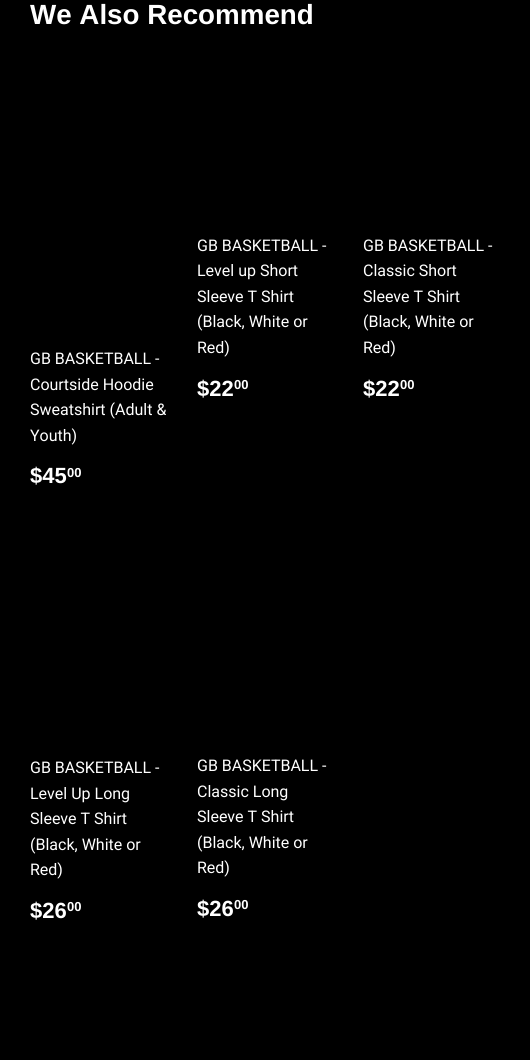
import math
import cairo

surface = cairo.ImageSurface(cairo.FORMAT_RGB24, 530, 1060)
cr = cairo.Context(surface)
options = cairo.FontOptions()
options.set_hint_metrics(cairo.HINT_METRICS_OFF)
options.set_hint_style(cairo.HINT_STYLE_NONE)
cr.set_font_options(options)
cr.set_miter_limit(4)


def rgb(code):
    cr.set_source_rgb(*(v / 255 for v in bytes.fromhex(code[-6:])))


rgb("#000000")
cr.paint()
cr.select_font_face("Liberation Sans", cairo.FONT_SLANT_NORMAL, cairo.FONT_WEIGHT_BOLD)
cr.set_font_size(27.75)
rgb("#ffffff")
cr.move_to(30, 24)
cr.show_text("We Also Recommend")
cr.select_font_face("Roboto")
cr.set_font_size(16)
for x, y, s in [
    (197, 251, "GB BASKETBALL -"),
    (197, 276, "Level up Short"),
    (197, 302, "Sleeve T Shirt"),
    (197, 327, "(Black, White or"),
    (197, 353, "Red)"),
]:
    cr.move_to(x, y)
    cr.show_text(s)
cr.select_font_face("Liberation Sans", cairo.FONT_SLANT_NORMAL, cairo.FONT_WEIGHT_BOLD)
cr.set_font_size(22)
cr.move_to(197, 396)
cr.show_text("$22")
cr.set_font_size(13)
cr.move_to(234, 389)
cr.show_text("00")
cr.select_font_face("Roboto")
cr.set_font_size(16)
for x, y, s in [
    (363, 251, "GB BASKETBALL -"),
    (363, 276, "Classic Short"),
    (363, 302, "Sleeve T Shirt"),
    (363, 327, "(Black, White or"),
    (363, 353, "Red)"),
]:
    cr.move_to(x, y)
    cr.show_text(s)
cr.select_font_face("Liberation Sans", cairo.FONT_SLANT_NORMAL, cairo.FONT_WEIGHT_BOLD)
cr.set_font_size(22)
cr.move_to(363, 396)
cr.show_text("$22")
cr.set_font_size(13)
cr.move_to(400, 389)
cr.show_text("00")
cr.select_font_face("Roboto")
cr.set_font_size(16)
for x, y, s in [
    (30, 364, "GB BASKETBALL -"),
    (30, 390, "Courtside Hoodie"),
    (30, 415, "Sweatshirt (Adult &"),
    (30, 441, "Youth)"),
]:
    cr.move_to(x, y)
    cr.show_text(s)
cr.select_font_face("Liberation Sans", cairo.FONT_SLANT_NORMAL, cairo.FONT_WEIGHT_BOLD)
cr.set_font_size(22)
cr.move_to(30, 483)
cr.show_text("$45")
cr.set_font_size(13)
cr.move_to(67, 477)
cr.show_text("00")
cr.select_font_face("Roboto")
cr.set_font_size(16)
for x, y, s in [
    (30, 773, "GB BASKETBALL -"),
    (30, 799, "Level Up Long"),
    (30, 824, "Sleeve T Shirt"),
    (30, 850, "(Black, White or"),
    (30, 875, "Red)"),
]:
    cr.move_to(x, y)
    cr.show_text(s)
cr.select_font_face("Liberation Sans", cairo.FONT_SLANT_NORMAL, cairo.FONT_WEIGHT_BOLD)
cr.set_font_size(22)
cr.move_to(30, 918)
cr.show_text("$26")
cr.set_font_size(13)
cr.move_to(67, 911)
cr.show_text("00")
cr.select_font_face("Roboto")
cr.set_font_size(16)
for x, y, s in [
    (197, 771, "GB BASKETBALL -"),
    (197, 797, "Classic Long"),
    (197, 822, "Sleeve T Shirt"),
    (197, 848, "(Black, White or"),
    (197, 873, "Red)"),
]:
    cr.move_to(x, y)
    cr.show_text(s)
cr.select_font_face("Liberation Sans", cairo.FONT_SLANT_NORMAL, cairo.FONT_WEIGHT_BOLD)
cr.set_font_size(22)
cr.move_to(197, 916)
cr.show_text("$26")
cr.set_font_size(13)
cr.move_to(234, 909)
cr.show_text("00")
surface.write_to_png("page.png")
